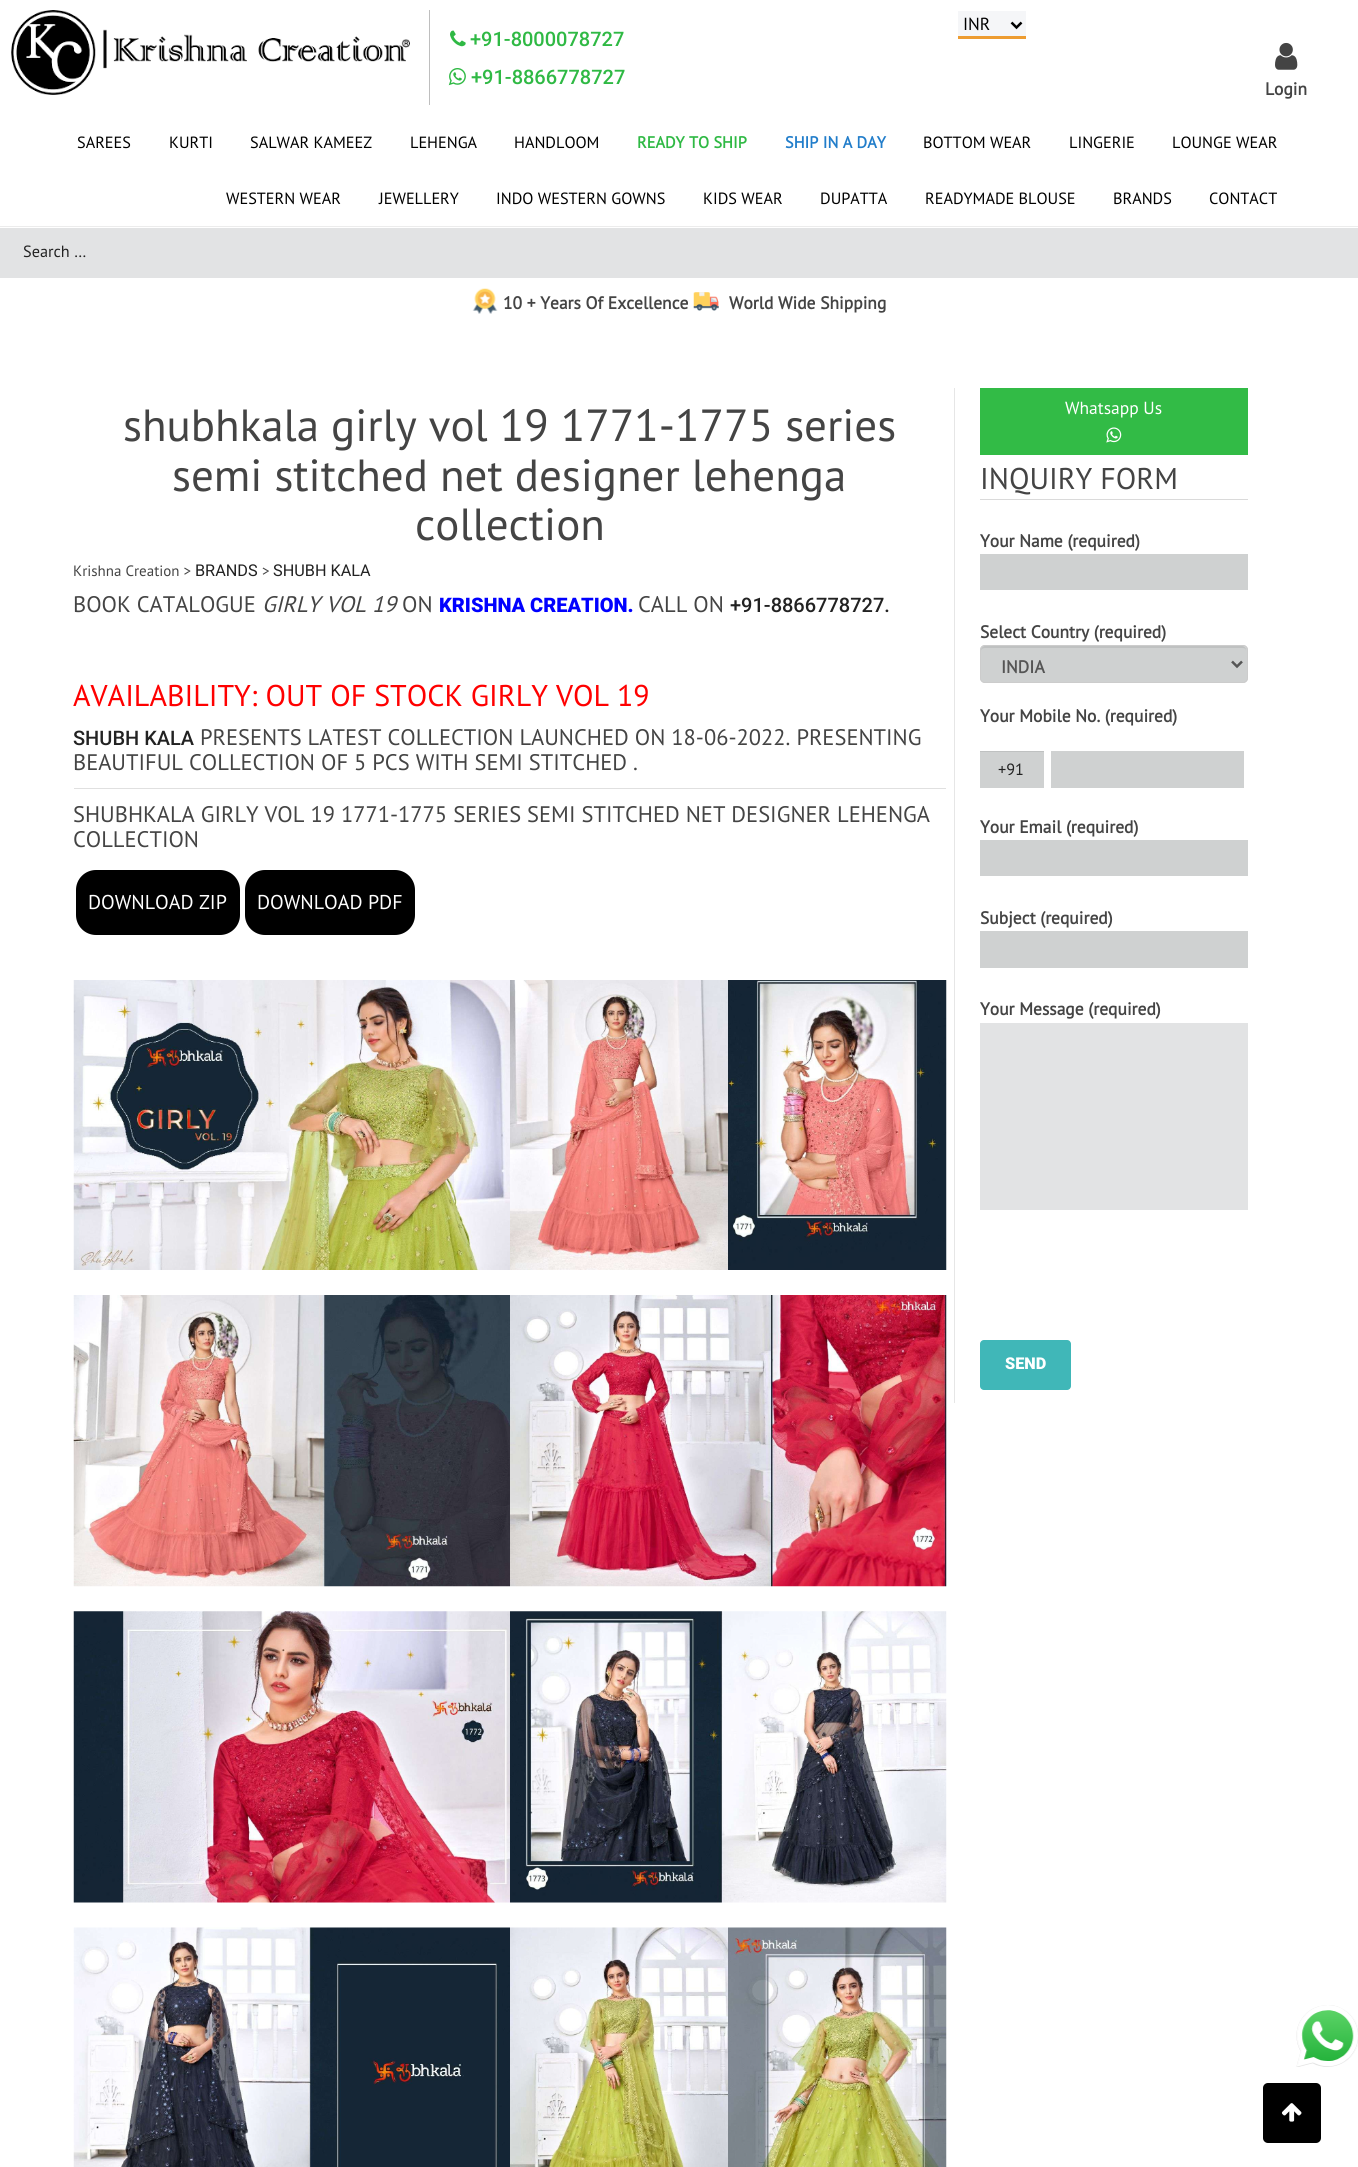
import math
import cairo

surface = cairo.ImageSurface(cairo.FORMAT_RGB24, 1358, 2167)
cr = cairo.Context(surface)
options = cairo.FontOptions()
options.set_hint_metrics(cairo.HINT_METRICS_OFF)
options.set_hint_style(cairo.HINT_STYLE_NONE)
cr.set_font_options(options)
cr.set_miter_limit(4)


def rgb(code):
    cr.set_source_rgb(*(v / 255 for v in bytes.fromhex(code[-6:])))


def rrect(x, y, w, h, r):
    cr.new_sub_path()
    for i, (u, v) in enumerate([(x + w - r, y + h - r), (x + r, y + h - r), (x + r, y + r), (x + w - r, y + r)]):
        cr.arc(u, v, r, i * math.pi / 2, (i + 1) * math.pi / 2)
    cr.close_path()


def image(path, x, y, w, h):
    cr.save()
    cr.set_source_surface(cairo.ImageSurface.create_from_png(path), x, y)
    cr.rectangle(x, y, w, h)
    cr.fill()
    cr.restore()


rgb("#ffffff")
cr.paint()
rgb("#ececec")
cr.rectangle(0, 226, 1358, 1)
cr.fill()
image("img/1.png", 11, 10, 399, 85)
rgb("#f5f6f8")
cr.rectangle(958, 11, 68, 25)
cr.fill()
rgb("#ed9c31")
cr.rectangle(958, 36, 68, 3)
cr.fill()
cr.new_path()
cr.move_to(1011.5, 22.5)
cr.line_to(1016.5, 27.5)
cr.line_to(1021.5, 22.5)
rgb("#000000")
cr.set_line_width(2.5)
cr.stroke()
rgb("#bebebe")
cr.rectangle(429, 10, 1, 95)
cr.fill()
image("img/2.png", 450, 30, 16, 17)
image("img/3.png", 448, 68, 18, 18)
image("img/4.png", 1275, 42, 23, 28)
rgb("#e2e3e4")
cr.rectangle(0, 228, 1358, 50)
cr.fill()
image("img/5.png", 472, 288, 26, 26)
image("img/6.png", 693, 292, 26, 19)
rgb("#e0e0e0")
cr.rectangle(74, 788, 872, 1)
cr.fill()
rgb("#000000")
rrect(76, 870, 164, 65, 20)
cr.fill()
rrect(245, 870, 170, 65, 20)
cr.fill()
image("img/7.png", 73, 980, 437, 290)
image("img/8.png", 510, 980, 437, 290)
image("img/9.png", 73, 1295, 437, 292)
image("img/10.png", 510, 1295, 437, 292)
image("img/11.png", 73, 1611, 437, 292)
image("img/12.png", 510, 1611, 437, 292)
image("img/13.png", 73, 1927, 437, 240)
image("img/14.png", 510, 1927, 437, 240)
rgb("#e6e6e6")
cr.rectangle(954, 388, 1, 1015)
cr.fill()
rgb("#32bb46")
cr.rectangle(980, 388, 268, 67)
cr.fill()
image("img/15.png", 1106, 427, 16, 16)
rgb("#dadada")
cr.rectangle(980, 499, 268, 1)
cr.fill()
rgb("#cfd1d1")
cr.rectangle(980, 554, 268, 36)
cr.fill()
rrect(980, 645, 268, 38, 5)
cr.fill()
rgb("#bfc1c1")
cr.new_path()
cr.move_to(985, 648)
cr.line_to(1242, 648)
cr.curve_to(1245, 648, 1246, 649, 1246, 651)
cr.line_to(1246, 650)
cr.curve_to(1246, 648, 1244, 646, 1242, 646)
cr.line_to(985, 646)
cr.curve_to(983, 646, 981, 648, 981, 650)
cr.line_to(981, 651)
cr.curve_to(981, 649, 983, 648, 985, 648)
cr.close_path()
cr.fill()
rrect(980.5, 645.5, 267, 37, 4.5)
rgb("#cccccc")
cr.set_line_width(1)
cr.stroke()
cr.new_path()
cr.move_to(1232, 661.5)
cr.line_to(1237, 666.5)
cr.line_to(1242, 661.5)
rgb("#555555")
cr.set_line_width(2.5)
cr.stroke()
for x, y, w, h, color in [
    (980, 752, 64, 36, "#cfd1d1"),
    (980, 751, 64, 1, "#bfc1c1"),
    (1051, 751, 193, 37, "#cfd1d1"),
    (980, 840, 268, 36, "#cfd1d1"),
    (980, 931, 268, 37, "#cfd1d1"),
    (980, 1023, 268, 187, "#e2e3e4"),
]:
    rgb(color)
    cr.rectangle(x, y, w, h)
    cr.fill()
rgb("#40b7b8")
rrect(980, 1340, 91, 50, 4)
cr.fill()
image("img/16.png", 1296, 2005, 62, 62)
rgb("#000000")
rrect(1263, 2083, 58, 60, 5)
cr.fill()
image("img/17.png", 1281, 2103, 21, 19)
cr.select_font_face("PT Sans")
cr.set_font_size(17.5)
cr.move_to(963, 30)
cr.show_text("INR")
cr.select_font_face("Roboto Medium")
cr.set_font_size(20)
rgb("#2fb944")
cr.move_to(470, 46)
cr.show_text("+91-8000078727")
cr.move_to(471, 84)
cr.show_text("+91-8866778727")
cr.select_font_face("PT Sans", cairo.FONT_SLANT_NORMAL, cairo.FONT_WEIGHT_BOLD)
cr.set_font_size(17.5)
rgb("#444444")
cr.move_to(1265, 95)
cr.show_text("Login")
cr.select_font_face("PT Sans")
cr.set_font_size(16.25)
rgb("#000000")
for x, y, s in [
    (77, 148, "SAREES"),
    (169, 148, "KURTI"),
    (250, 148, "SALWAR KAMEEZ"),
    (410, 148, "LEHENGA"),
    (514, 148, "HANDLOOM"),
]:
    cr.move_to(x, y)
    cr.show_text(s)
cr.select_font_face("PT Sans", cairo.FONT_SLANT_NORMAL, cairo.FONT_WEIGHT_BOLD)
rgb("#2fb944")
cr.move_to(637, 148)
cr.show_text("READY TO SHIP")
rgb("#217dca")
cr.move_to(785, 148)
cr.show_text("SHIP IN A DAY")
cr.select_font_face("PT Sans")
rgb("#000000")
for x, y, s in [
    (923, 148, "BOTTOM WEAR"),
    (1069, 148, "LINGERIE"),
    (1172, 148, "LOUNGE WEAR"),
    (226, 204, "WESTERN WEAR"),
    (379, 204, "JEWELLERY"),
    (496, 204, "INDO WESTERN GOWNS"),
    (703, 204, "KIDS WEAR"),
    (820, 204, "DUPATTA"),
    (925, 204, "READYMADE BLOUSE"),
    (1113, 204, "BRANDS"),
    (1209, 204, "CONTACT"),
]:
    cr.move_to(x, y)
    cr.show_text(s)
rgb("#222222")
cr.move_to(23, 257)
cr.show_text("Search …")
cr.select_font_face("PT Sans", cairo.FONT_SLANT_NORMAL, cairo.FONT_WEIGHT_BOLD)
cr.set_font_size(17.5)
rgb("#444444")
cr.move_to(503, 309)
cr.show_text("10 + Years Of Excellence")
cr.move_to(729, 309)
cr.show_text("World Wide Shipping")
cr.select_font_face("PT Sans")
cr.set_font_size(45)
for x, y, s in [
    (123, 441, "shubhkala girly vol 19 1771-1775 series"),
    (172, 491, "semi stitched net designer lehenga"),
    (415, 540, "collection"),
]:
    cr.move_to(x, y)
    cr.show_text(s)
cr.set_font_size(15)
cr.move_to(73, 576)
cr.show_text("Krishna Creation >")
cr.select_font_face("Roboto")
cr.set_font_size(16.25)
rgb("#222222")
cr.move_to(195, 576)
cr.show_text("BRANDS")
cr.select_font_face("PT Sans")
cr.set_font_size(15)
rgb("#444444")
cr.move_to(262, 576)
cr.show_text(">")
cr.select_font_face("Roboto")
cr.set_font_size(16.25)
rgb("#222222")
cr.move_to(273, 576)
cr.show_text("SHUBH KALA")
cr.select_font_face("PT Sans")
cr.set_font_size(22.5)
rgb("#444444")
cr.move_to(73, 612)
cr.show_text("BOOK CATALOGUE")
cr.select_font_face("PT Sans", cairo.FONT_SLANT_ITALIC)
cr.move_to(262, 612)
cr.show_text("GIRLY VOL 19")
cr.select_font_face("PT Sans")
cr.move_to(402, 612)
cr.show_text("ON")
cr.select_font_face("Roboto Black")
cr.set_font_size(20)
rgb("#0000ff")
cr.move_to(439, 612)
cr.show_text("KRISHNA CREATION.")
cr.select_font_face("PT Sans")
cr.set_font_size(22.5)
rgb("#444444")
cr.move_to(638, 612)
cr.show_text("CALL ON")
cr.select_font_face("Roboto Medium")
cr.set_font_size(20)
rgb("#222222")
cr.move_to(730, 612)
cr.show_text("+91-8866778727.")
cr.select_font_face("PT Sans")
cr.set_font_size(30)
rgb("#ff0000")
cr.move_to(73, 706)
cr.show_text("AVAILABILITY: OUT OF STOCK GIRLY VOL 19")
cr.select_font_face("Roboto Medium")
cr.set_font_size(20)
rgb("#222222")
cr.move_to(73, 745)
cr.show_text("SHUBH KALA")
cr.select_font_face("PT Sans")
cr.set_font_size(22.5)
rgb("#444444")
for x, y, s in [
    (200, 745, "PRESENTS LATEST COLLECTION LAUNCHED ON 18-06-2022. PRESENTING"),
    (73, 770, "BEAUTIFUL COLLECTION OF 5 PCS WITH SEMI STITCHED ."),
    (73, 822, "SHUBHKALA GIRLY VOL 19 1771-1775 SERIES SEMI STITCHED NET DESIGNER LEHENGA"),
    (73, 847, "COLLECTION"),
]:
    cr.move_to(x, y)
    cr.show_text(s)
cr.set_font_size(20)
rgb("#ffffff")
cr.move_to(88, 909)
cr.show_text("DOWNLOAD ZIP")
cr.move_to(257, 909)
cr.show_text("DOWNLOAD PDF")
cr.set_font_size(17.5)
cr.move_to(1065, 414)
cr.show_text("Whatsapp Us")
cr.set_font_size(30)
rgb("#444444")
cr.move_to(980, 489)
cr.show_text("INQUIRY FORM")
cr.select_font_face("PT Sans", cairo.FONT_SLANT_NORMAL, cairo.FONT_WEIGHT_BOLD)
cr.set_font_size(17.5)
cr.move_to(980, 547)
cr.show_text("Your Name (required)")
cr.move_to(980, 638)
cr.show_text("Select Country (required)")
rgb("#555555")
cr.move_to(1001, 673)
cr.show_text("INDIA")
rgb("#444444")
cr.move_to(980, 722)
cr.show_text("Your Mobile No. (required)")
cr.select_font_face("PT Sans")
cr.set_font_size(16.25)
rgb("#222222")
cr.move_to(998, 775)
cr.show_text("+91")
cr.select_font_face("PT Sans", cairo.FONT_SLANT_NORMAL, cairo.FONT_WEIGHT_BOLD)
cr.set_font_size(17.5)
rgb("#444444")
for x, y, s in [
    (980, 833, "Your Email (required)"),
    (980, 924, "Subject (required)"),
    (980, 1015, "Your Message (required)"),
]:
    cr.move_to(x, y)
    cr.show_text(s)
cr.select_font_face("Roboto Black")
cr.set_font_size(16.25)
rgb("#ffffff")
cr.move_to(1005, 1369)
cr.show_text("SEND")
surface.write_to_png("page.png")
